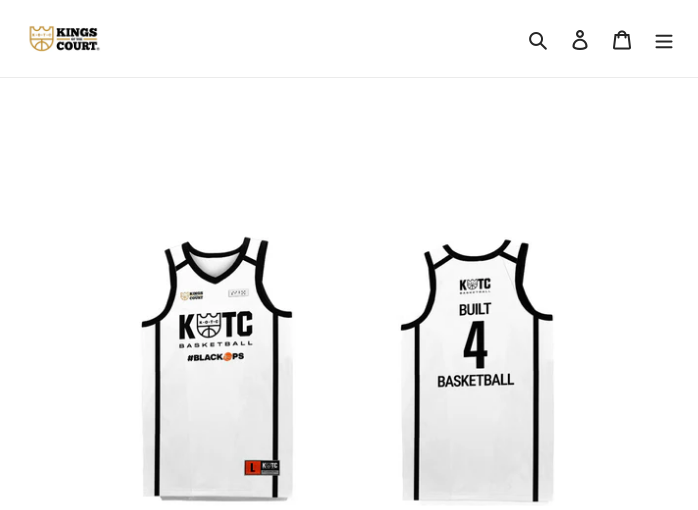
import math
import cairo

surface = cairo.ImageSurface(cairo.FORMAT_RGB24, 698, 510)
cr = cairo.Context(surface)
options = cairo.FontOptions()
options.set_hint_metrics(cairo.HINT_METRICS_OFF)
options.set_hint_style(cairo.HINT_STYLE_NONE)
cr.set_font_options(options)
cr.set_miter_limit(4)


def rgb(code):
    cr.set_source_rgb(*(v / 255 for v in bytes.fromhex(code[-6:])))


def image(path, x, y, w, h):
    cr.save()
    cr.set_source_surface(cairo.ImageSurface.create_from_png(path), x, y)
    cr.rectangle(x, y, w, h)
    cr.fill()
    cr.restore()


rgb("#ffffff")
cr.paint()
rgb("#ebebeb")
cr.rectangle(0, 77, 698, 1)
cr.fill()
image("img/1.png", 29, 25, 72, 27)
image("img/2.png", 529, 32, 18, 18)
image("img/3.png", 572, 30, 16, 20)
image("img/4.png", 613, 30, 18, 20)
image("img/5.png", 655, 34, 18, 15)
image("img/6.png", 139, 236, 416, 270)
surface.write_to_png("page.png")
